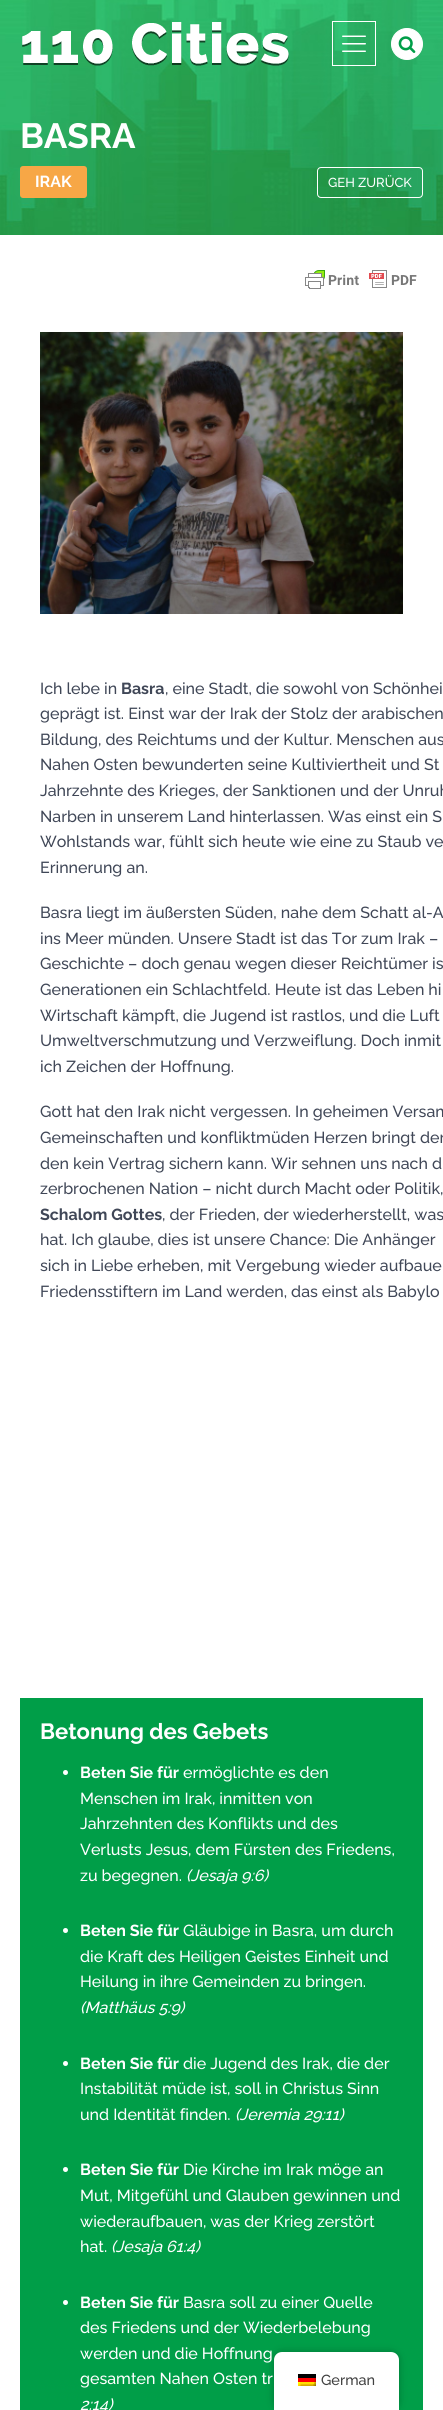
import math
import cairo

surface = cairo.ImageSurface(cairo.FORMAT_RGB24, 443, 2410)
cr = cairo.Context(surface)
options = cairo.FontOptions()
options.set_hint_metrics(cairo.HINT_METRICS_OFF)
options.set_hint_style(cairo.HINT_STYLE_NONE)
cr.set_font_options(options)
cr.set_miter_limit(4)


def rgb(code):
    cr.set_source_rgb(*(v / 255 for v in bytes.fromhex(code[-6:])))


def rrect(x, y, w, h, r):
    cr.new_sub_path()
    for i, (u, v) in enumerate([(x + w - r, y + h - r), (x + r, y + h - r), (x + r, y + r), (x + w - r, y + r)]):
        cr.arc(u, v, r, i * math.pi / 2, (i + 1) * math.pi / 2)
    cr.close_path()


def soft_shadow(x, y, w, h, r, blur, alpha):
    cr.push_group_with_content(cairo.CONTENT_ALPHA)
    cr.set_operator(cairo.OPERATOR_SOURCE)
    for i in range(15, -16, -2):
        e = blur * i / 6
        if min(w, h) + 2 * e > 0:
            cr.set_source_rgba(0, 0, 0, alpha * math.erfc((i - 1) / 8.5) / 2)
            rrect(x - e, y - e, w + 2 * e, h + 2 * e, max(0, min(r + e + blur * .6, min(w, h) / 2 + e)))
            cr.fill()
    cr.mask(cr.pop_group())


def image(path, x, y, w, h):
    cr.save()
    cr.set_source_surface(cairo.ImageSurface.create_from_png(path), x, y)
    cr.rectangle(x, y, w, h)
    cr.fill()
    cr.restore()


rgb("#ffffff")
cr.paint()
image("img/4.png", 0, 0, 443, 235)
image("img/1.png", 22, 22, 267, 44)
cr.rectangle(332.5, 21.5, 43, 44)
rgb("#ffffff")
cr.set_line_width(1)
cr.stroke()
image("img/2.png", 342, 35, 24, 17)
cr.arc(407, 44, 15.5, 0, 2 * math.pi)
cr.fill_preserve()
cr.stroke()
image("img/3.png", 398, 36, 18, 17)
rgb("#f7a746")
rrect(20, 166, 67, 32, 3)
cr.fill()
rrect(317.5, 167.5, 105, 30, 3.5)
rgb("#ffffff")
cr.stroke()
image("img/5.png", 305, 270, 112, 19)
image("img/6.png", 40, 332, 363, 282)
rgb("#009e48")
cr.rectangle(20, 1698, 403, 712)
cr.fill()
rgb("#ffffff")
cr.arc(65.5, 1772.5, 2.5, 0, 2 * math.pi)
cr.fill()
cr.arc(65.5, 1930.5, 2.5, 0, 2 * math.pi)
cr.fill()
cr.arc(65.5, 2063.5, 2.5, 0, 2 * math.pi)
cr.fill()
cr.arc(65.5, 2169.5, 2.5, 0, 2 * math.pi)
cr.fill()
cr.arc(65.5, 2302.5, 2.5, 0, 2 * math.pi)
cr.fill()
rgb("#000000")
soft_shadow(274, 2352, 125, 58, 8, 4, 0.25)
rgb("#ffffff")
cr.new_path()
cr.move_to(282, 2352)
cr.line_to(391, 2352)
cr.curve_to(395.5, 2352, 399, 2355.5, 399, 2360)
cr.line_to(399, 2410)
cr.line_to(274, 2410)
cr.line_to(274, 2360)
cr.curve_to(274, 2355.5, 277.5, 2352, 282, 2352)
cr.close_path()
cr.fill()
image("img/7.png", 298, 2374, 18, 12)
cr.select_font_face("Raleway", cairo.FONT_SLANT_NORMAL, cairo.FONT_WEIGHT_BOLD)
cr.set_font_size(35)
cr.move_to(20, 148)
cr.show_text("BASRA")
cr.set_font_size(16)
cr.move_to(35, 187)
cr.show_text("IRAK")
cr.select_font_face("Raleway Medium")
cr.set_font_size(13)
cr.move_to(328, 187)
cr.show_text("GEH ZURÜCK")
cr.set_font_size(16)
rgb("#404757")
cr.move_to(40, 694)
cr.show_text("Ich lebe in")
cr.select_font_face("Raleway", cairo.FONT_SLANT_NORMAL, cairo.FONT_WEIGHT_BOLD)
cr.move_to(121, 694)
cr.show_text("Basra")
cr.select_font_face("Raleway Medium")
for x, y, s in [
    (165, 694, ", eine Stadt, die sowohl von Schönhei"),
    (40, 719, "geprägt ist. Einst war der Irak der Stolz der arabischen"),
    (40, 745, "Bildung, des Reichtums und der Kultur. Menschen aus"),
    (40, 770, "Nahen Osten bewunderten seine Kultiviertheit und St"),
    (40, 796, "Jahrzehnte des Krieges, der Sanktionen und der Unruh"),
    (40, 822, "Narben in unserem Land hinterlassen. Was einst ein S"),
    (40, 847, "Wohlstands war, fühlt sich heute wie eine zu Staub ve"),
    (40, 873, "Erinnerung an."),
    (40, 918, "Basra liegt im äußersten Süden, nahe dem Schatt al-A"),
    (40, 944, "ins Meer münden. Unsere Stadt ist das Tor zum Irak –"),
    (40, 969, "Geschichte – doch genau wegen dieser Reichtümer is"),
    (40, 995, "Generationen ein Schlachtfeld. Heute ist das Leben hi"),
    (40, 1021, "Wirtschaft kämpft, die Jugend ist rastlos, und die Luft"),
    (40, 1046, "Umweltverschmutzung und Verzweiflung. Doch inmit"),
    (40, 1072, "ich Zeichen der Hoffnung."),
    (40, 1117, "Gott hat den Irak nicht vergessen. In geheimen Versam"),
    (40, 1143, "Gemeinschaften und konfliktmüden Herzen bringt der"),
    (40, 1169, "den kein Vertrag sichern kann. Wir sehnen uns nach d"),
    (40, 1194, "zerbrochenen Nation – nicht durch Macht oder Politik,"),
]:
    cr.move_to(x, y)
    cr.show_text(s)
cr.select_font_face("Raleway", cairo.FONT_SLANT_NORMAL, cairo.FONT_WEIGHT_BOLD)
cr.move_to(40, 1220)
cr.show_text("Schalom Gottes")
cr.select_font_face("Raleway Medium")
for x, y, s in [
    (162, 1220, ", der Frieden, der wiederherstellt, was"),
    (40, 1245, "hat. Ich glaube, dies ist unsere Chance: Die Anhänger"),
    (40, 1271, "sich in Liebe erheben, mit Vergebung wieder aufbaue"),
    (40, 1297, "Friedensstiftern im Land werden, das einst als Babylo"),
]:
    cr.move_to(x, y)
    cr.show_text(s)
cr.select_font_face("Raleway", cairo.FONT_SLANT_NORMAL, cairo.FONT_WEIGHT_BOLD)
cr.set_font_size(22)
rgb("#ffffff")
cr.move_to(40, 1739)
cr.show_text("Betonung des Gebets")
cr.set_font_size(16)
cr.move_to(80, 1778)
cr.show_text("Beten Sie für")
cr.select_font_face("Raleway Medium")
for x, y, s in [
    (183, 1778, "ermöglichte es den"),
    (80, 1804, "Menschen im Irak, inmitten von"),
    (80, 1829, "Jahrzehnten des Konflikts und des"),
    (80, 1855, "Verlusts Jesus, dem Fürsten des Friedens,"),
    (80, 1881, "zu begegnen."),
]:
    cr.move_to(x, y)
    cr.show_text(s)
cr.select_font_face("Raleway Medium", cairo.FONT_SLANT_ITALIC)
cr.move_to(186, 1881)
cr.show_text("(Jesaja 9:6)")
cr.select_font_face("Raleway", cairo.FONT_SLANT_NORMAL, cairo.FONT_WEIGHT_BOLD)
cr.move_to(80, 1936)
cr.show_text("Beten Sie für")
cr.select_font_face("Raleway Medium")
for x, y, s in [
    (183, 1936, "Gläubige in Basra, um durch"),
    (80, 1962, "die Kraft des Heiligen Geistes Einheit und"),
    (80, 1987, "Heilung in ihre Gemeinden zu bringen."),
]:
    cr.move_to(x, y)
    cr.show_text(s)
cr.select_font_face("Raleway Medium", cairo.FONT_SLANT_ITALIC)
cr.move_to(80, 2013)
cr.show_text("(Matthäus 5:9)")
cr.select_font_face("Raleway", cairo.FONT_SLANT_NORMAL, cairo.FONT_WEIGHT_BOLD)
cr.move_to(80, 2069)
cr.show_text("Beten Sie für")
cr.select_font_face("Raleway Medium")
for x, y, s in [
    (183, 2069, "die Jugend des Irak, die der"),
    (80, 2094, "Instabilität müde ist, soll in Christus Sinn"),
    (80, 2120, "und Identität finden."),
]:
    cr.move_to(x, y)
    cr.show_text(s)
cr.select_font_face("Raleway Medium", cairo.FONT_SLANT_ITALIC)
cr.move_to(235, 2120)
cr.show_text("(Jeremia 29:11)")
cr.select_font_face("Raleway", cairo.FONT_SLANT_NORMAL, cairo.FONT_WEIGHT_BOLD)
cr.move_to(80, 2175)
cr.show_text("Beten Sie für")
cr.select_font_face("Raleway Medium")
for x, y, s in [
    (183, 2175, "Die Kirche im Irak möge an"),
    (80, 2201, "Mut, Mitgefühl und Glauben gewinnen und"),
    (80, 2227, "wiederaufbauen, was der Krieg zerstört"),
    (80, 2252, "hat."),
]:
    cr.move_to(x, y)
    cr.show_text(s)
cr.select_font_face("Raleway Medium", cairo.FONT_SLANT_ITALIC)
cr.move_to(111, 2252)
cr.show_text("(Jesaja 61:4)")
cr.select_font_face("Raleway", cairo.FONT_SLANT_NORMAL, cairo.FONT_WEIGHT_BOLD)
cr.move_to(80, 2308)
cr.show_text("Beten Sie für")
cr.select_font_face("Raleway Medium")
for x, y, s in [
    (183, 2308, "Basra soll zu einer Quelle"),
    (80, 2333, "des Friedens und der Wiederbelebung"),
    (80, 2359, "werden und die Hoffnung"),
    (80, 2384, "gesamten Nahen Osten tr"),
]:
    cr.move_to(x, y)
    cr.show_text(s)
cr.select_font_face("Raleway Medium", cairo.FONT_SLANT_ITALIC)
cr.move_to(80, 2410)
cr.show_text("2:14)")
cr.select_font_face("Raleway Medium")
cr.set_font_size(14.5)
rgb("#404040")
cr.move_to(321, 2385)
cr.show_text("German")
surface.write_to_png("page.png")
